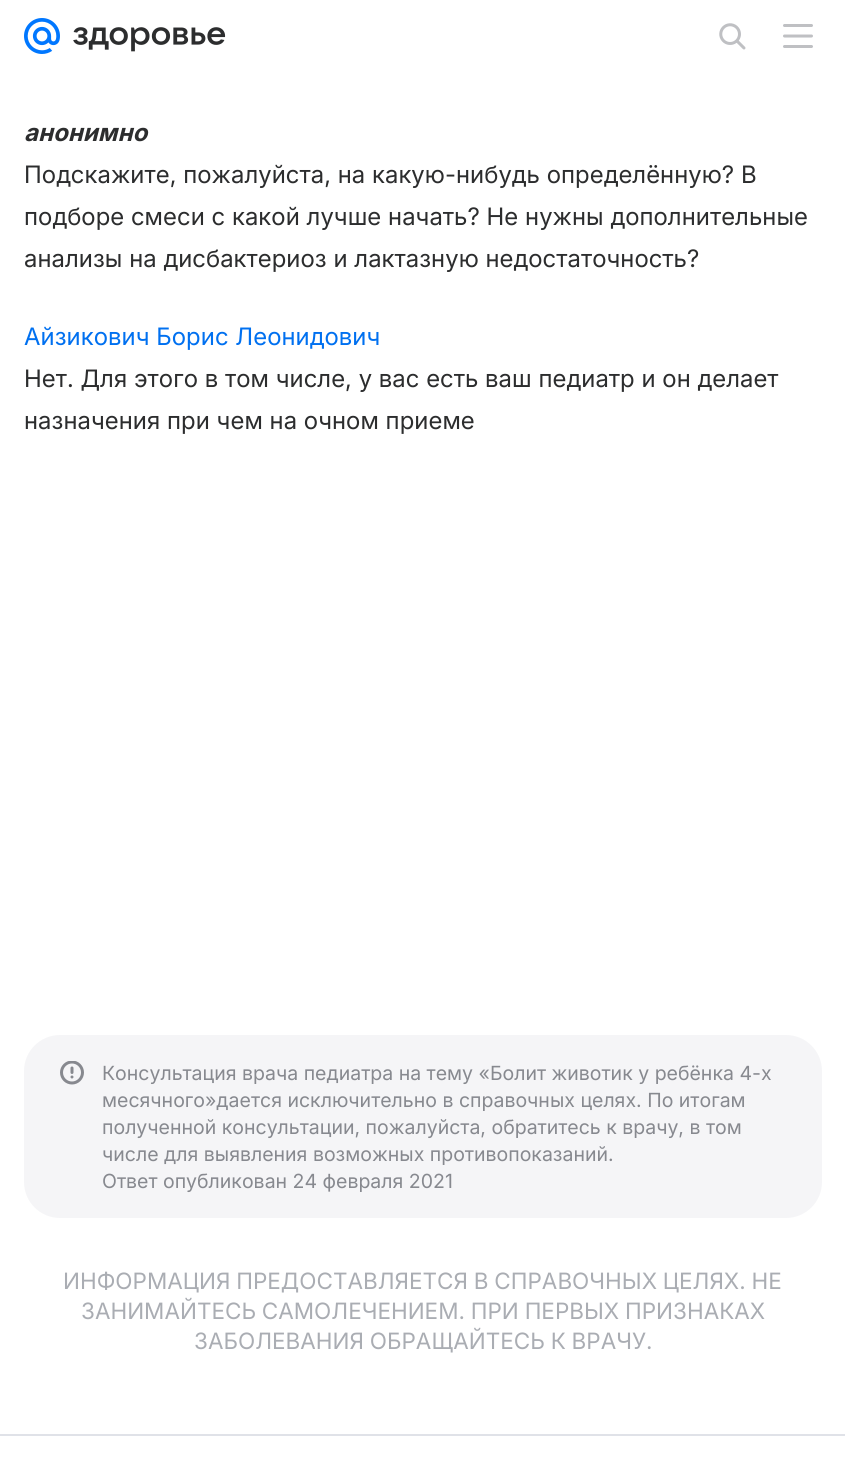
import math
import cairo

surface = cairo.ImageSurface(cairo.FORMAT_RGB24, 845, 1465)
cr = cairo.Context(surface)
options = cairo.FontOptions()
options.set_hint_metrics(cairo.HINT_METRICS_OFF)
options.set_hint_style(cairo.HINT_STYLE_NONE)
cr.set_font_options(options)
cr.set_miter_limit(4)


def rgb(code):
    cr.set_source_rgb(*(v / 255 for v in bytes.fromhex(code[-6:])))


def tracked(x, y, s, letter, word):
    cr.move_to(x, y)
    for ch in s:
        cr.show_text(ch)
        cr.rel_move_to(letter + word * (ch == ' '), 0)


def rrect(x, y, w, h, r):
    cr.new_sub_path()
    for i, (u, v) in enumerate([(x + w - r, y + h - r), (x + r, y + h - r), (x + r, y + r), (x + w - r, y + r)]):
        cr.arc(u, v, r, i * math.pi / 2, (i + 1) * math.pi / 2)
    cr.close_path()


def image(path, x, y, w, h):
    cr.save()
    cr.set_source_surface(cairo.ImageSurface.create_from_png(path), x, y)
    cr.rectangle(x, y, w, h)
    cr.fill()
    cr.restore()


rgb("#ffffff")
cr.paint()
image("img/1.png", 24, 18, 36, 36)
image("img/2.png", 73, 27, 153, 25)
image("img/3.png", 719, 23, 27, 27)
image("img/4.png", 783, 24, 30, 24)
rgb("#f5f5f7")
rrect(24, 1035, 798, 183, 36)
cr.fill()
image("img/5.png", 60, 1061, 24, 24)
rgb("#e0e2e8")
cr.rectangle(0, 1434, 845, 2)
cr.fill()
cr.select_font_face("Inter", cairo.FONT_SLANT_ITALIC, cairo.FONT_WEIGHT_BOLD)
cr.set_font_size(24)
rgb("#2c2d2e")
tracked(24, 141, "анонимно", 0.07, 0)
cr.select_font_face("Inter")
for x, y, s in [
    (24, 183, "Подскажите, пожалуйста, на какую-нибудь определённую? В"),
    (24, 225, "подборе смеси с какой лучше начать? Не нужны дополнительные"),
    (24, 267, "анализы на дисбактериоз и лактазную недостаточность?"),
]:
    tracked(x, y, s, 0.07, 0)
rgb("#0070f0")
tracked(24, 345, "Айзикович Борис Леонидович", 0.07, 0)
rgb("#2c2d2e")
tracked(24, 387, "Нет. Для этого в том числе, у вас есть ваш педиатр и он делает", 0.07, 0)
tracked(24, 429, "назначения при чем на очном приеме", 0.07, 0)
cr.select_font_face("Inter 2")
cr.set_font_size(19.5)
rgb("#87898f")
for x, y, s in [
    (102, 1080, "Консультация врача педиатра на тему «Болит животик у ребёнка 4-х"),
    (102, 1107, "месячного»дается исключительно в справочных целях. По итогам"),
    (102, 1134, "полученной консультации, пожалуйста, обратитесь к врачу, в том"),
    (102, 1161, "числе для выявления возможных противопоказаний."),
    (102, 1188, "Ответ опубликован 24 февраля 2021"),
]:
    cr.move_to(x, y)
    cr.show_text(s)
cr.set_font_size(22.5)
rgb("#aaadb3")
for x, y, s in [
    (63, 1289, "ИНФОРМАЦИЯ ПРЕДОСТАВЛЯЕТСЯ В СПРАВОЧНЫХ ЦЕЛЯХ. НЕ"),
    (81, 1319, "ЗАНИМАЙТЕСЬ САМОЛЕЧЕНИЕМ. ПРИ ПЕРВЫХ ПРИЗНАКАХ"),
    (194, 1349, "ЗАБОЛЕВАНИЯ ОБРАЩАЙТЕСЬ К ВРАЧУ."),
]:
    tracked(x, y, s, 0, -0.5)
surface.write_to_png("page.png")
